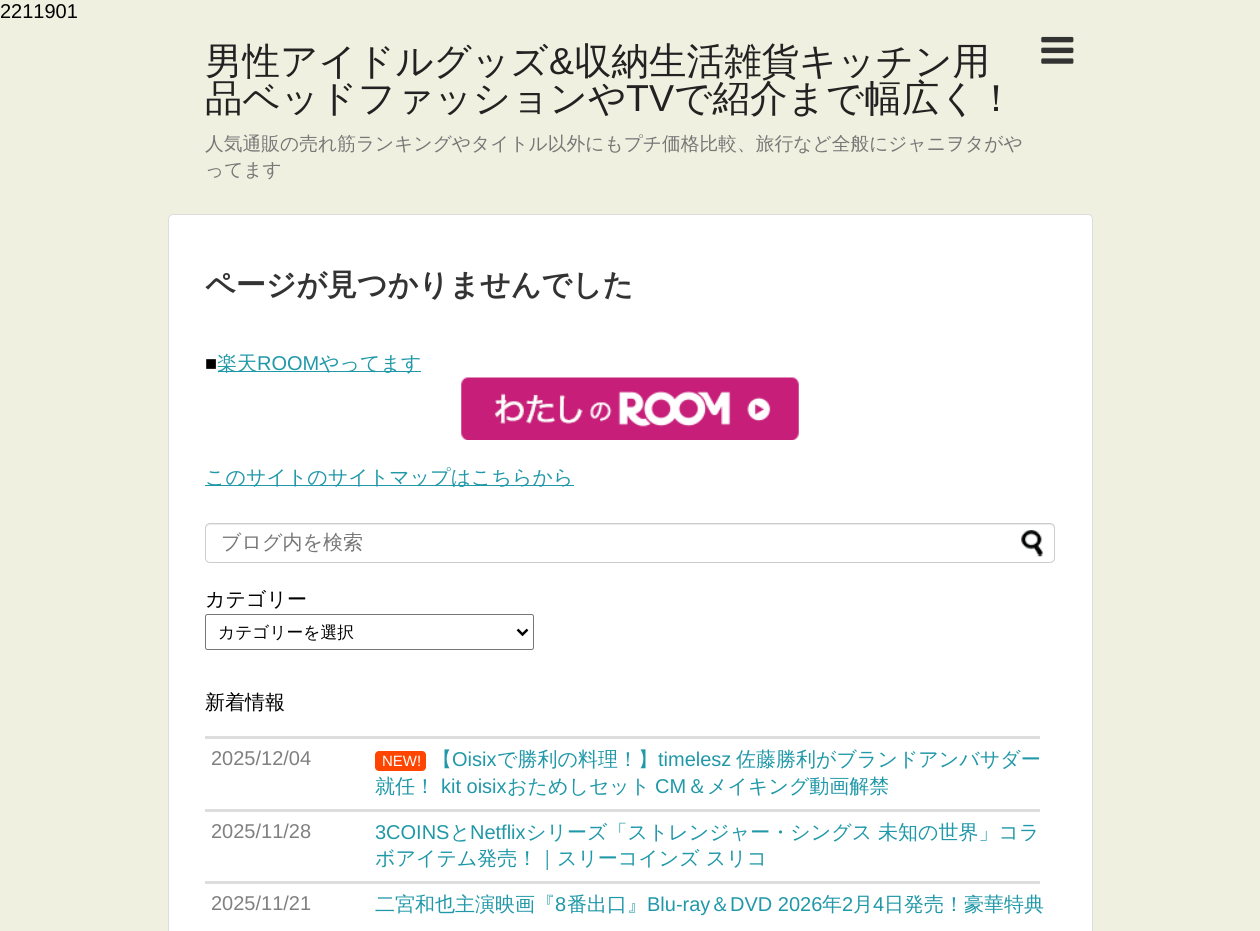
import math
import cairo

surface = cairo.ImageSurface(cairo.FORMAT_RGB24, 1260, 931)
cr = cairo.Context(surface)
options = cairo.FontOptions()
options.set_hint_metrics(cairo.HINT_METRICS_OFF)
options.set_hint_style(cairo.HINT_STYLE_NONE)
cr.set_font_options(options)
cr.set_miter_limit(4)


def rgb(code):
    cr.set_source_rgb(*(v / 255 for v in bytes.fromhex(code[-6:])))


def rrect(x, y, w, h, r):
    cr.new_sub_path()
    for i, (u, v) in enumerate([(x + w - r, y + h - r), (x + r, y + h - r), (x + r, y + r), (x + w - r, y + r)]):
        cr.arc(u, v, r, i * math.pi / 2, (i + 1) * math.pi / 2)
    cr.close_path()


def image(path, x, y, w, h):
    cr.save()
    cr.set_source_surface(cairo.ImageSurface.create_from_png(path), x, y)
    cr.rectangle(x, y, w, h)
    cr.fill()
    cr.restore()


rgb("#f0f0e0")
cr.paint()
image("img/1.png", 1041, 36, 33, 28)
rgb("#ffffff")
rrect(168.5, 214.5, 924, 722, 4.5)
cr.fill_preserve()
rgb("#dddddd")
cr.set_line_width(1)
cr.stroke()
rgb("#2098a8")
cr.rectangle(218, 371, 203, 1)
cr.fill()
image("img/2.png", 461, 377, 338, 63)
cr.rectangle(205, 485, 369, 1)
cr.fill()
rgb("#ececec")
cr.new_path()
cr.move_to(210, 525)
cr.line_to(1050, 525)
cr.curve_to(1052, 525, 1054, 527, 1054, 529)
cr.curve_to(1054, 526, 1053, 524, 1050, 524)
cr.line_to(210, 524)
cr.curve_to(207, 524, 206, 526, 206, 529)
cr.curve_to(206, 527, 208, 525, 210, 525)
cr.close_path()
cr.fill()
rrect(205.5, 523.5, 849, 39, 4.5)
rgb("#cccccc")
cr.stroke()
image("img/3.png", 1021, 530, 22, 27)
rrect(205.5, 614.5, 328, 35, 2)
rgb("#767676")
cr.stroke()
cr.new_path()
cr.move_to(517.5, 629.5)
cr.line_to(522.5, 634.5)
cr.line_to(527.5, 629.5)
rgb("#000000")
cr.set_line_width(2.5)
cr.stroke()
rgb("#dddddd")
cr.rectangle(205, 736, 835, 3)
cr.fill()
rgb("#ff4500")
rrect(375, 751, 51, 20, 4)
cr.fill()
rgb("#dddddd")
cr.rectangle(205, 809, 835, 3)
cr.fill()
cr.rectangle(205, 881, 835, 3)
cr.fill()
cr.select_font_face("Liberation Sans")
cr.set_font_size(20)
rgb("#000000")
cr.move_to(0, 18)
cr.show_text("2211901")
cr.select_font_face("WenQuanYi Zen Hei Medium")
cr.set_font_size(37.5)
rgb("#222222")
cr.move_to(205, 74)
cr.show_text("男性アイドルグッズ")
cr.select_font_face("Liberation Sans")
cr.move_to(549, 74)
cr.show_text("&")
cr.select_font_face("WenQuanYi Zen Hei Medium")
cr.move_to(574, 74)
cr.show_text("収納生活雑貨キッチン用")
cr.move_to(205, 111)
cr.show_text("品ベッドファッションや")
cr.select_font_face("Liberation Sans")
cr.move_to(626, 111)
cr.show_text("TV")
cr.select_font_face("WenQuanYi Zen Hei Medium")
cr.move_to(674, 111)
cr.show_text("で紹介まで幅広く！")
cr.set_font_size(18.75)
rgb("#777777")
cr.move_to(205, 150)
cr.show_text("人気通販の売れ筋ランキングやタイトル以外にもプチ価格比較、旅行など全般にジャニヲタがや")
cr.move_to(205, 176)
cr.show_text("ってます")
cr.select_font_face("WenQuanYi Zen Hei", cairo.FONT_SLANT_NORMAL, cairo.FONT_WEIGHT_BOLD)
cr.set_font_size(30)
rgb("#333333")
cr.move_to(205, 295)
cr.show_text("ページが見つかりませんでした")
cr.select_font_face("Liberation Sans")
cr.set_font_size(20)
rgb("#000000")
cr.move_to(205, 370)
cr.show_text("■")
cr.select_font_face("WenQuanYi Zen Hei Medium")
rgb("#2098a8")
cr.move_to(217, 370)
cr.show_text("楽天")
cr.select_font_face("Liberation Sans")
cr.move_to(257, 370)
cr.show_text("ROOM")
cr.select_font_face("WenQuanYi Zen Hei Medium")
cr.move_to(319, 370)
cr.show_text("やってます")
cr.move_to(205, 484)
cr.show_text("このサイトのサイトマップはこちらから")
rgb("#777777")
cr.move_to(221, 549)
cr.show_text("ブログ内を検索")
rgb("#000000")
cr.move_to(205, 606)
cr.show_text("カテゴリー")
cr.set_font_size(16.75)
cr.move_to(218, 638)
cr.show_text("カテゴリーを選択")
cr.set_font_size(20)
cr.move_to(205, 709)
cr.show_text("新着情報")
cr.select_font_face("Liberation Sans")
rgb("#808080")
cr.move_to(211, 765)
cr.show_text("2025/12/04")
cr.set_font_size(15)
rgb("#ffffff")
cr.move_to(382, 766)
cr.show_text("NEW!")
cr.select_font_face("WenQuanYi Zen Hei Medium")
cr.set_font_size(20)
rgb("#2098a8")
cr.move_to(432, 766)
cr.show_text("【")
cr.select_font_face("Liberation Sans")
cr.move_to(452, 766)
cr.show_text("Oisix")
cr.select_font_face("WenQuanYi Zen Hei Medium")
cr.move_to(497, 766)
cr.show_text("で勝利の料理！】")
cr.select_font_face("Liberation Sans")
cr.move_to(658, 766)
cr.show_text("timelesz")
cr.select_font_face("WenQuanYi Zen Hei Medium")
cr.move_to(736, 766)
cr.show_text("佐藤勝利がブランドアンバサダー")
cr.move_to(375, 793)
cr.show_text("就任！")
cr.select_font_face("Liberation Sans")
cr.move_to(441, 793)
cr.show_text("kit oisix")
cr.select_font_face("WenQuanYi Zen Hei Medium")
cr.move_to(507, 793)
cr.show_text("おためしセット")
cr.select_font_face("Liberation Sans")
cr.move_to(655, 793)
cr.show_text("CM")
cr.select_font_face("WenQuanYi Zen Hei Medium")
cr.move_to(687, 793)
cr.show_text("＆メイキング動画解禁")
cr.select_font_face("Liberation Sans")
rgb("#808080")
cr.move_to(211, 838)
cr.show_text("2025/11/28")
rgb("#2098a8")
cr.move_to(375, 839)
cr.show_text("3COINS")
cr.select_font_face("WenQuanYi Zen Hei Medium")
cr.move_to(450, 839)
cr.show_text("と")
cr.select_font_face("Liberation Sans")
cr.move_to(470, 839)
cr.show_text("Netflix")
cr.select_font_face("WenQuanYi Zen Hei Medium")
cr.move_to(526, 839)
cr.show_text("シリーズ「ストレンジャー・シングス 未知の世界」コラ")
cr.move_to(375, 865)
cr.show_text("ボアイテム発売！｜スリーコインズ スリコ")
cr.select_font_face("Liberation Sans")
rgb("#808080")
cr.move_to(211, 910)
cr.show_text("2025/11/21")
cr.select_font_face("WenQuanYi Zen Hei Medium")
rgb("#2098a8")
cr.move_to(375, 911)
cr.show_text("二宮和也主演映画『")
cr.select_font_face("Liberation Sans")
cr.move_to(555, 911)
cr.show_text("8")
cr.select_font_face("WenQuanYi Zen Hei Medium")
cr.move_to(567, 911)
cr.show_text("番出口』")
cr.select_font_face("Liberation Sans")
cr.move_to(647, 911)
cr.show_text("Blu-ray")
cr.select_font_face("WenQuanYi Zen Hei Medium")
cr.move_to(710, 911)
cr.show_text("＆")
cr.select_font_face("Liberation Sans")
cr.move_to(730, 911)
cr.show_text("DVD 2026")
cr.select_font_face("WenQuanYi Zen Hei Medium")
cr.move_to(822, 911)
cr.show_text("年")
cr.select_font_face("Liberation Sans")
cr.move_to(842, 911)
cr.show_text("2")
cr.select_font_face("WenQuanYi Zen Hei Medium")
cr.move_to(853, 911)
cr.show_text("月")
cr.select_font_face("Liberation Sans")
cr.move_to(873, 911)
cr.show_text("4")
cr.select_font_face("WenQuanYi Zen Hei Medium")
cr.move_to(884, 911)
cr.show_text("日発売！豪華特典")
surface.write_to_png("page.png")
